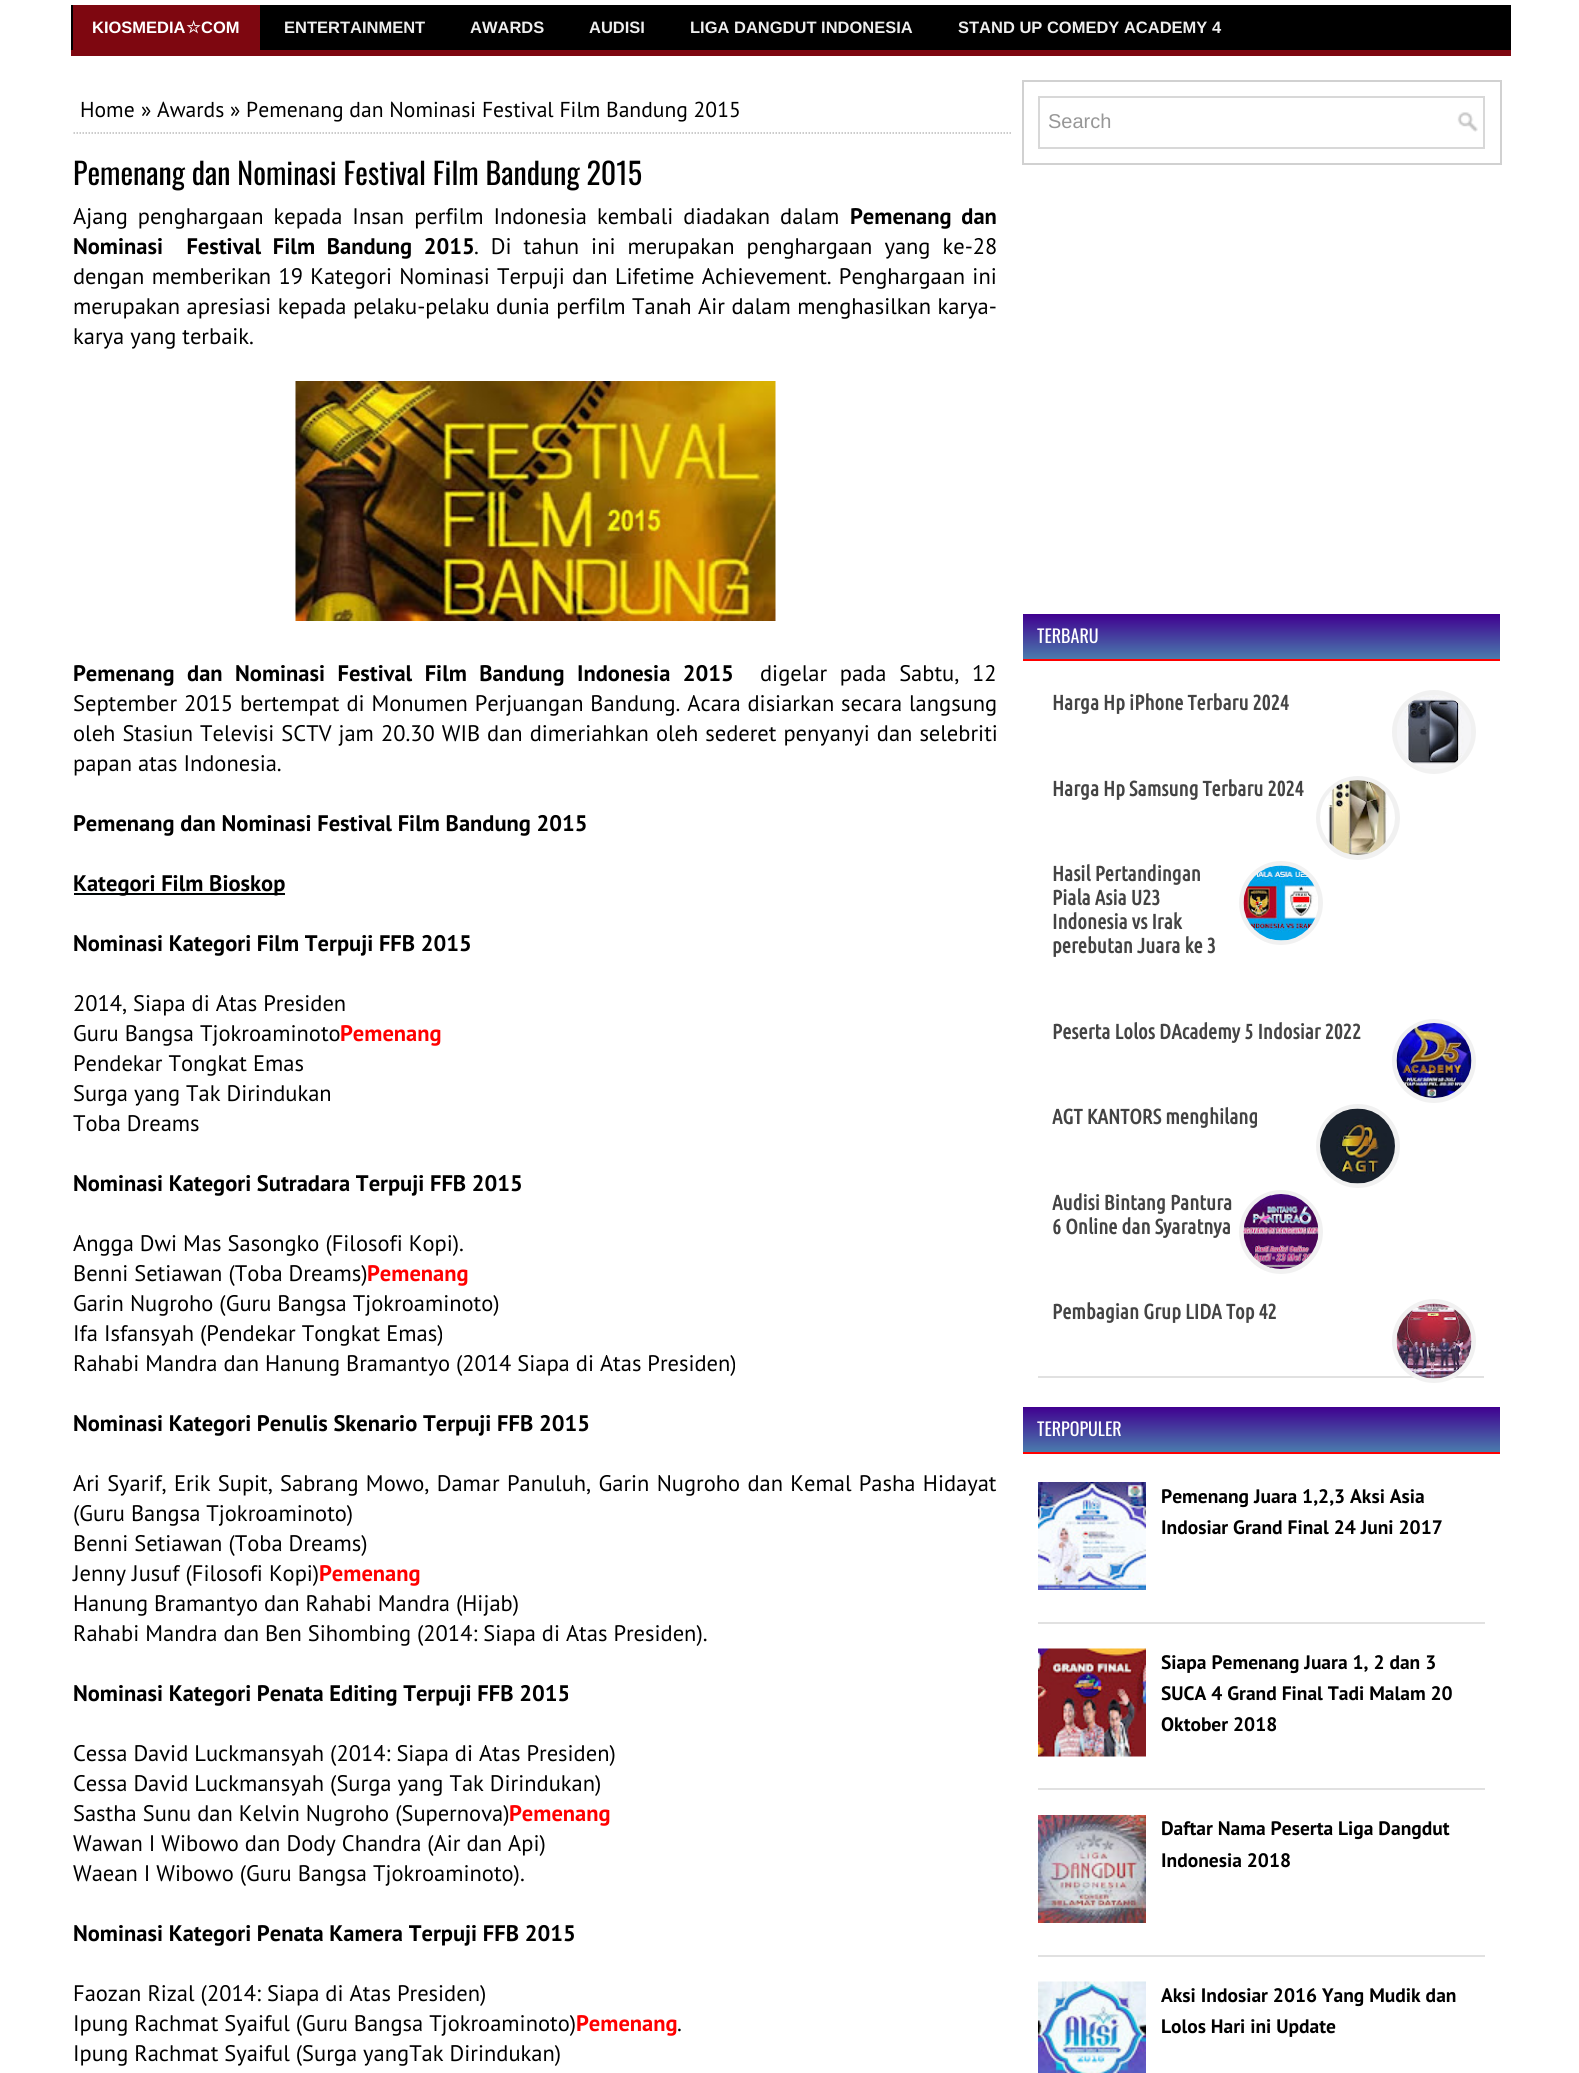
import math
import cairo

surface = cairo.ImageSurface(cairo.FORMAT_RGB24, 1579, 2073)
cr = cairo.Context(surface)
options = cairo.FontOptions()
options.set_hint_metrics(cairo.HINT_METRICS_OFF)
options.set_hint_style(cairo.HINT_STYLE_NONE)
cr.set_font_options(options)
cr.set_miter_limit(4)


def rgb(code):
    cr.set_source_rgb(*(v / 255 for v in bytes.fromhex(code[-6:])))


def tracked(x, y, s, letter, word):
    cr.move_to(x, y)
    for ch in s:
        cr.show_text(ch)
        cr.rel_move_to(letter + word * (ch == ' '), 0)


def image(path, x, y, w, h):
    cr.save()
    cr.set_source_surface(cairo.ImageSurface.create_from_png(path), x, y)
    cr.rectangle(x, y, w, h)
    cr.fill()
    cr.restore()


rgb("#ffffff")
cr.paint()
for x, y, w, h, color in [
    (260, 5, 1251, 45, "#000000"),
    (71, 50, 1440, 6, "#7e0710"),
    (73, 5, 187, 45, "#7e0710"),
    (71, 5, 2, 45, "#000000"),
]:
    rgb(color)
    cr.rectangle(x, y, w, h)
    cr.fill()
cr.new_path()
cr.move_to(73.5, 133)
cr.line_to(1012.5, 133)
rgb("#bbbbbb")
cr.set_line_width(1.5)
cr.set_dash([1.5, 1.5])
cr.stroke()
image("img/1.png", 295, 381, 481, 240)
rgb("#000505")
cr.rectangle(74, 893, 211, 2)
cr.fill()
cr.rectangle(1023, 81, 478, 83)
rgb("#d1d1d1")
cr.set_line_width(2)
cr.set_dash([])
cr.stroke()
image("img/2.png", 1457, 112, 21, 20)
cr.rectangle(1039, 97, 445, 51)
rgb("#d8d8d8")
cr.stroke()
gradient = cairo.LinearGradient(1023, 614, 1023, 659)
gradient.add_color_stop_rgba(0, 0.251, 0, 0.565, 1)
gradient.add_color_stop_rgba(1, 0.29, 0.486, 0.678, 1)
cr.set_source(gradient)
cr.rectangle(1023, 614, 477, 45)
cr.fill()
rgb("#ff0000")
cr.rectangle(1023, 659, 477, 2)
cr.fill()
rgb("#f1f1f1")
cr.arc(1434, 732, 42, 0, 2 * math.pi)
cr.fill()
image("img/3.png", 1397, 695, 74, 74)
cr.arc(1358, 818, 42, 0, 2 * math.pi)
cr.fill()
image("img/4.png", 1320, 780, 75, 75)
cr.arc(1281, 903, 42, 0, 2 * math.pi)
cr.fill()
image("img/5.png", 1243, 865, 75, 76)
cr.arc(1434, 1061, 42, 0, 2 * math.pi)
cr.fill()
image("img/6.png", 1396, 1023, 76, 75)
cr.arc(1358, 1146, 42, 0, 2 * math.pi)
cr.fill()
image("img/7.png", 1320, 1108, 75, 76)
cr.arc(1281, 1232, 42, 0, 2 * math.pi)
cr.fill()
image("img/8.png", 1243, 1194, 76, 75)
rgb("#e1e1e1")
cr.rectangle(1038, 1376, 446, 2)
cr.fill()
rgb("#f1f1f1")
cr.arc(1434, 1341, 42, 0, 2 * math.pi)
cr.fill()
image("img/9.png", 1396, 1303, 76, 76)
gradient = cairo.LinearGradient(1023, 1407, 1023, 1452)
gradient.add_color_stop_rgba(0, 0.251, 0, 0.565, 1)
gradient.add_color_stop_rgba(1, 0.29, 0.486, 0.678, 1)
cr.set_source(gradient)
cr.rectangle(1023, 1407, 477, 45)
cr.fill()
rgb("#ff0000")
cr.rectangle(1023, 1452, 477, 2)
cr.fill()
rgb("#e1e1e1")
cr.rectangle(1038, 1622, 447, 2)
cr.fill()
image("img/10.png", 1038, 1482, 108, 108)
cr.rectangle(1038, 1788, 447, 2)
cr.fill()
image("img/11.png", 1038, 1648, 108, 109)
cr.rectangle(1038, 1955, 447, 2)
cr.fill()
image("img/12.png", 1038, 1815, 108, 108)
image("img/13.png", 1038, 1981, 108, 92)
cr.select_font_face("Liberation Sans", cairo.FONT_SLANT_NORMAL, cairo.FONT_WEIGHT_BOLD)
cr.set_font_size(16.5)
rgb("#ffffff")
cr.move_to(92, 33)
cr.show_text("KIOSMEDIA")
cr.select_font_face("DejaVu Sans", cairo.FONT_SLANT_NORMAL, cairo.FONT_WEIGHT_BOLD)
cr.move_to(186, 33)
cr.show_text("☆")
cr.select_font_face("Liberation Sans", cairo.FONT_SLANT_NORMAL, cairo.FONT_WEIGHT_BOLD)
cr.move_to(201, 33)
cr.show_text("COM")
rgb("#eeeeee")
for x, y, s in [
    (284, 33, "ENTERTAINMENT"),
    (470, 33, "AWARDS"),
    (589, 33, "AUDISI"),
    (690, 33, "LIGA DANGDUT INDONESIA"),
    (958, 33, "STAND UP COMEDY ACADEMY 4"),
]:
    cr.move_to(x, y)
    cr.show_text(s)
cr.select_font_face("PT Sans")
cr.set_font_size(21.6)
rgb("#000000")
for x, y, s in [
    (80, 117, "Home"),
    (141, 117, "»"),
    (157, 117, "Awards"),
    (230, 117, "» Pemenang dan Nominasi Festival Film Bandung 2015"),
]:
    cr.move_to(x, y)
    cr.show_text(s)
cr.select_font_face("Oswald")
cr.set_font_size(30)
cr.move_to(73, 185)
cr.show_text("Pemenang dan Nominasi Festival Film Bandung 2015")
cr.select_font_face("PT Sans")
cr.set_font_size(22.5)
tracked(73, 224, "Ajang penghargaan kepada Insan perfilm Indonesia kembali diadakan dalam", 0, 4)
cr.select_font_face("PT Sans", cairo.FONT_SLANT_NORMAL, cairo.FONT_WEIGHT_BOLD)
tracked(850, 224, "Pemenang dan", 0, 4)
tracked(73, 254, "Nominasi  Festival Film Bandung 2015", 0, 6)
cr.select_font_face("PT Sans")
tracked(474, 254, ". Di tahun ini merupakan penghargaan yang ke-28", 0, 6)
tracked(73, 284, "dengan memberikan 19 Kategori Nominasi Terpuji dan Lifetime Achievement. Penghargaan ini", 0, 1.25)
tracked(73, 314, "merupakan apresiasi kepada pelaku-pelaku dunia perfilm Tanah Air dalam menghasilkan karya-", 0, 0.5)
cr.move_to(73, 344)
cr.show_text("karya yang terbaik.")
cr.select_font_face("PT Sans", cairo.FONT_SLANT_NORMAL, cairo.FONT_WEIGHT_BOLD)
tracked(73, 681, "Pemenang dan Nominasi Festival Film Bandung Indonesia 2015", 0, 6.75)
cr.select_font_face("PT Sans")
tracked(760, 681, "digelar pada Sabtu, 12", 0, 6.75)
tracked(73, 711, "September 2015 bertempat di Monumen Perjuangan Bandung. Acara disiarkan secara langsung", 0, 0.9)
tracked(73, 741, "oleh Stasiun Televisi SCTV jam 20.30 WIB dan dimeriahkan oleh sederet penyanyi dan selebriti", 0, 1)
cr.move_to(73, 771)
cr.show_text("papan atas Indonesia.")
cr.select_font_face("PT Sans", cairo.FONT_SLANT_NORMAL, cairo.FONT_WEIGHT_BOLD)
for x, y, s in [
    (73, 831, "Pemenang dan Nominasi Festival Film Bandung 2015"),
    (73, 891, "Kategori Film Bioskop"),
    (73, 951, "Nominasi Kategori Film Terpuji FFB 2015"),
]:
    cr.move_to(x, y)
    cr.show_text(s)
cr.select_font_face("PT Sans")
cr.move_to(73, 1011)
cr.show_text("2014, Siapa di Atas Presiden")
cr.move_to(73, 1041)
cr.show_text("Guru Bangsa Tjokroaminoto")
cr.select_font_face("PT Sans", cairo.FONT_SLANT_NORMAL, cairo.FONT_WEIGHT_BOLD)
rgb("#ff0000")
cr.move_to(340, 1041)
cr.show_text("Pemenang")
cr.select_font_face("PT Sans")
rgb("#000000")
for x, y, s in [
    (73, 1071, "Pendekar Tongkat Emas"),
    (73, 1101, "Surga yang Tak Dirindukan"),
    (73, 1131, "Toba Dreams"),
]:
    cr.move_to(x, y)
    cr.show_text(s)
cr.select_font_face("PT Sans", cairo.FONT_SLANT_NORMAL, cairo.FONT_WEIGHT_BOLD)
cr.move_to(73, 1191)
cr.show_text("Nominasi Kategori Sutradara Terpuji FFB 2015")
cr.select_font_face("PT Sans")
cr.move_to(73, 1251)
cr.show_text("Angga Dwi Mas Sasongko (Filosofi Kopi).")
cr.move_to(73, 1281)
cr.show_text("Benni Setiawan (Toba Dreams)")
cr.select_font_face("PT Sans", cairo.FONT_SLANT_NORMAL, cairo.FONT_WEIGHT_BOLD)
rgb("#ff0000")
cr.move_to(367, 1281)
cr.show_text("Pemenang")
cr.select_font_face("PT Sans")
rgb("#000000")
for x, y, s in [
    (73, 1311, "Garin Nugroho (Guru Bangsa Tjokroaminoto)"),
    (73, 1341, "Ifa Isfansyah (Pendekar Tongkat Emas)"),
    (73, 1371, "Rahabi Mandra dan Hanung Bramantyo (2014 Siapa di Atas Presiden)"),
]:
    cr.move_to(x, y)
    cr.show_text(s)
cr.select_font_face("PT Sans", cairo.FONT_SLANT_NORMAL, cairo.FONT_WEIGHT_BOLD)
cr.move_to(73, 1431)
cr.show_text("Nominasi Kategori Penulis Skenario Terpuji FFB 2015")
cr.select_font_face("PT Sans")
tracked(73, 1491, "Ari Syarif, Erik Supit, Sabrang Mowo, Damar Panuluh, Garin Nugroho dan Kemal Pasha Hidayat", 0, 1.3)
for x, y, s in [
    (73, 1521, "(Guru Bangsa Tjokroaminoto)"),
    (73, 1551, "Benni Setiawan (Toba Dreams)"),
    (73, 1581, "Jenny Jusuf (Filosofi Kopi)"),
]:
    cr.move_to(x, y)
    cr.show_text(s)
cr.select_font_face("PT Sans", cairo.FONT_SLANT_NORMAL, cairo.FONT_WEIGHT_BOLD)
rgb("#ff0000")
cr.move_to(319, 1581)
cr.show_text("Pemenang")
cr.select_font_face("PT Sans")
rgb("#000000")
cr.move_to(73, 1611)
cr.show_text("Hanung Bramantyo dan Rahabi Mandra (Hijab)")
cr.move_to(73, 1641)
cr.show_text("Rahabi Mandra dan Ben Sihombing (2014: Siapa di Atas Presiden).")
cr.select_font_face("PT Sans", cairo.FONT_SLANT_NORMAL, cairo.FONT_WEIGHT_BOLD)
cr.move_to(73, 1701)
cr.show_text("Nominasi Kategori Penata Editing Terpuji FFB 2015")
cr.select_font_face("PT Sans")
for x, y, s in [
    (73, 1761, "Cessa David Luckmansyah (2014: Siapa di Atas Presiden)"),
    (73, 1791, "Cessa David Luckmansyah (Surga yang Tak Dirindukan)"),
    (73, 1821, "Sastha Sunu dan Kelvin Nugroho (Supernova)"),
]:
    cr.move_to(x, y)
    cr.show_text(s)
cr.select_font_face("PT Sans", cairo.FONT_SLANT_NORMAL, cairo.FONT_WEIGHT_BOLD)
rgb("#ff0000")
cr.move_to(509, 1821)
cr.show_text("Pemenang")
cr.select_font_face("PT Sans")
rgb("#000000")
cr.move_to(73, 1851)
cr.show_text("Wawan I Wibowo dan Dody Chandra (Air dan Api)")
cr.move_to(73, 1881)
cr.show_text("Waean I Wibowo (Guru Bangsa Tjokroaminoto).")
cr.select_font_face("PT Sans", cairo.FONT_SLANT_NORMAL, cairo.FONT_WEIGHT_BOLD)
cr.move_to(73, 1941)
cr.show_text("Nominasi Kategori Penata Kamera Terpuji FFB 2015")
cr.select_font_face("PT Sans")
cr.move_to(73, 2001)
cr.show_text("Faozan Rizal (2014: Siapa di Atas Presiden)")
cr.move_to(73, 2031)
cr.show_text("Ipung Rachmat Syaiful (Guru Bangsa Tjokroaminoto)")
cr.select_font_face("PT Sans", cairo.FONT_SLANT_NORMAL, cairo.FONT_WEIGHT_BOLD)
rgb("#ff0000")
cr.move_to(576, 2031)
cr.show_text("Pemenang")
cr.select_font_face("PT Sans")
rgb("#000000")
cr.move_to(677, 2031)
cr.show_text(".")
cr.move_to(73, 2061)
cr.show_text("Ipung Rachmat Syaiful (Surga yangTak Dirindukan)")
cr.select_font_face("Liberation Sans")
cr.set_font_size(20)
rgb("#979797")
cr.move_to(1048, 128)
cr.show_text("Search")
cr.select_font_face("Oswald")
cr.set_font_size(18)
rgb("#ffffff")
cr.move_to(1037, 643)
cr.show_text("TERBARU")
cr.select_font_face("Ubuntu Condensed", cairo.FONT_SLANT_NORMAL, cairo.FONT_WEIGHT_BOLD)
cr.set_font_size(21)
rgb("#444444")
for x, y, s in [
    (1052, 710, "Harga Hp iPhone Terbaru 2024"),
    (1052, 796, "Harga Hp Samsung Terbaru 2024"),
    (1052, 881, "Hasil Pertandingan"),
    (1052, 905, "Piala Asia U23"),
    (1052, 929, "Indonesia vs Irak"),
    (1052, 953, "perebutan Juara ke 3"),
    (1052, 1039, "Peserta Lolos DAcademy 5 Indosiar 2022"),
    (1052, 1124, "AGT KANTORS menghilang"),
    (1052, 1210, "Audisi Bintang Pantura"),
    (1052, 1234, "6 Online dan Syaratnya"),
    (1052, 1319, "Pembagian Grup LIDA Top 42"),
]:
    cr.move_to(x, y)
    cr.show_text(s)
cr.select_font_face("Oswald")
cr.set_font_size(18)
rgb("#ffffff")
cr.move_to(1037, 1436)
cr.show_text("TERPOPULER")
cr.select_font_face("PT Sans", cairo.FONT_SLANT_NORMAL, cairo.FONT_WEIGHT_BOLD)
cr.set_font_size(19.5)
rgb("#000000")
for x, y, s in [
    (1161, 1503, "Pemenang Juara 1,2,3 Aksi Asia"),
    (1161, 1534, "Indosiar Grand Final 24 Juni 2017"),
    (1161, 1669, "Siapa Pemenang Juara 1, 2 dan 3"),
    (1161, 1700, "SUCA 4 Grand Final Tadi Malam 20"),
    (1161, 1731, "Oktober 2018"),
    (1161, 1835, "Daftar Nama Peserta Liga Dangdut"),
    (1161, 1867, "Indonesia 2018"),
    (1161, 2002, "Aksi Indosiar 2016 Yang Mudik dan"),
    (1161, 2033, "Lolos Hari ini Update"),
]:
    cr.move_to(x, y)
    cr.show_text(s)
surface.write_to_png("page.png")
